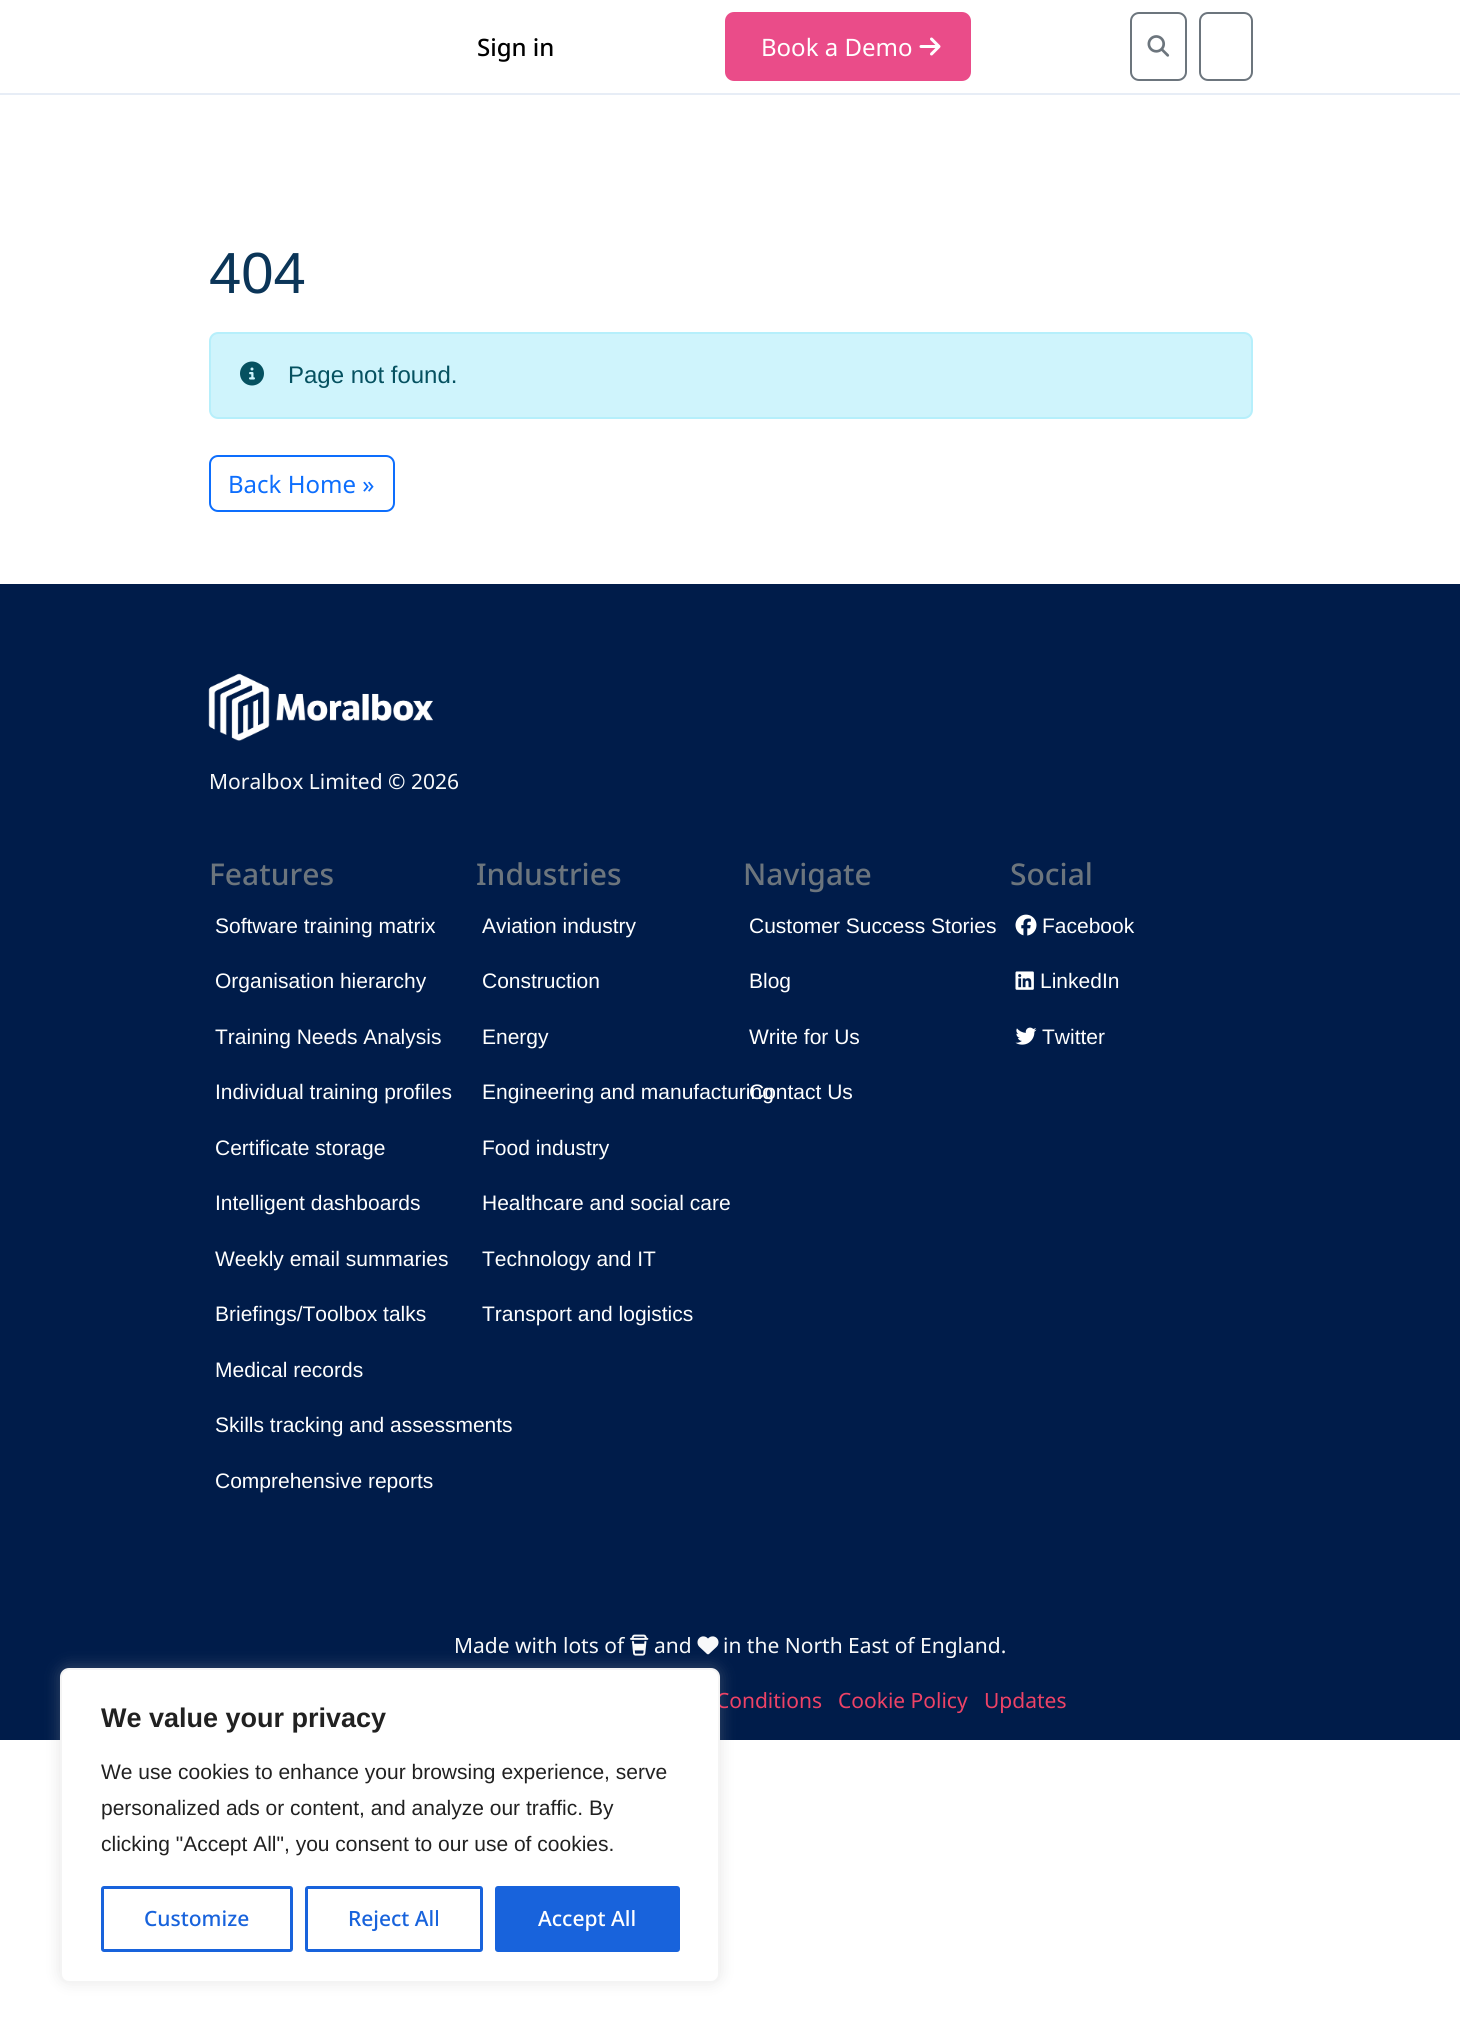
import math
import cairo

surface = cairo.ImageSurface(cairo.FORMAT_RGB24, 1460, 2042)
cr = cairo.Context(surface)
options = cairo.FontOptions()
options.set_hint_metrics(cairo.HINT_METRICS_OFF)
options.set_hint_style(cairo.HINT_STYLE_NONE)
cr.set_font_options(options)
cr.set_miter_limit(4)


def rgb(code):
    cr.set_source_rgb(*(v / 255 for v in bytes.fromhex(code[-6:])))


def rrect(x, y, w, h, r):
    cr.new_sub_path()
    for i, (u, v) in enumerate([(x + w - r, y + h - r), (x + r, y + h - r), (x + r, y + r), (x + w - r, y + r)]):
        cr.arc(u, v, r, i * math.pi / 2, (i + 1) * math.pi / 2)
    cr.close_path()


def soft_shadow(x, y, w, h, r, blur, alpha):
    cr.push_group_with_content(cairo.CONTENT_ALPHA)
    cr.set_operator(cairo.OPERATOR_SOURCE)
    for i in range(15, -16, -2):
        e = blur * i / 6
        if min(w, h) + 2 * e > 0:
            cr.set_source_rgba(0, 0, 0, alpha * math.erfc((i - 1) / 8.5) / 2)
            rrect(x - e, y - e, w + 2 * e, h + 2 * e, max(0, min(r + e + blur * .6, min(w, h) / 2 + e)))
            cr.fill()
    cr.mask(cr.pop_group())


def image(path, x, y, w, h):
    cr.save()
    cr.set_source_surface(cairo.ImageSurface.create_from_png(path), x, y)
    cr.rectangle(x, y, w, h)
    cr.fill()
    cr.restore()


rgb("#ffffff")
cr.paint()
rgb("#e7edf6")
cr.rectangle(0, 93, 1460, 2)
cr.fill()
rgb("#ea4c89")
rrect(725, 12, 246, 69, 9)
cr.fill()
image("img/1.png", 919, 37, 22, 19)
rrect(1131, 13, 55, 67, 8)
rgb("#6c757d")
cr.stroke()
image("img/2.png", 1147, 35, 23, 22)
rrect(1200, 13, 52, 67, 8)
cr.stroke()
rgb("#cff4fc")
rrect(210, 333, 1042, 85, 8)
cr.fill_preserve()
rgb("#b6effb")
cr.stroke()
image("img/3.png", 240, 361, 24, 25)
rrect(210, 456, 184, 55, 8)
rgb("#0d6efd")
cr.stroke()
rgb("#001c4a")
cr.rectangle(0, 584, 1460, 1156)
cr.fill()
image("img/4.png", 208, 673, 225, 68)
image("img/5.png", 1015, 914, 22, 22)
image("img/6.png", 1015, 971, 19, 19)
image("img/7.png", 1015, 1027, 22, 18)
image("img/8.png", 630, 1634, 19, 22)
image("img/9.png", 697, 1636, 22, 19)
rgb("#acabab")
soft_shadow(60, 1667, 660, 315, 9, 7.5, 0.3)
cr.select_font_face("Noto Sans Medium")
cr.set_font_size(24)
rgb("#000000")
cr.move_to(477, 56)
cr.show_text("Sign in")
cr.select_font_face("Noto Sans")
rgb("#ffffff")
cr.move_to(761, 56)
cr.show_text("Book a Demo")
cr.select_font_face("Liberation Sans")
cr.set_font_size(58)
rgb("#0b3558")
cr.move_to(209, 293)
cr.show_text("404")
cr.set_font_size(24)
rgb("#055160")
cr.move_to(288, 383)
cr.show_text("Page not found.")
cr.select_font_face("Noto Sans")
rgb("#0d6efd")
cr.move_to(228, 493)
cr.show_text("Back Home »")
cr.set_font_size(21)
rgb("#f8f9fa")
cr.move_to(209, 789)
cr.show_text("Moralbox Limited © 2026")
cr.select_font_face("Noto Sans Medium")
cr.set_font_size(30)
rgb("#6c757d")
cr.move_to(209, 885)
cr.show_text("Features")
cr.select_font_face("Liberation Sans")
cr.set_font_size(21)
rgb("#ffffff")
for x, y, s in [
    (215, 933, "Software training matrix"),
    (215, 988, "Organisation hierarchy"),
    (215, 1044, "Training Needs Analysis"),
    (215, 1099, "Individual training profiles"),
    (215, 1155, "Certificate storage"),
    (215, 1210, "Intelligent dashboards"),
    (215, 1266, "Weekly email summaries"),
    (215, 1321, "Briefings/Toolbox talks"),
    (215, 1377, "Medical records"),
    (215, 1432, "Skills tracking and assessments"),
    (215, 1488, "Comprehensive reports"),
]:
    cr.move_to(x, y)
    cr.show_text(s)
cr.select_font_face("Noto Sans Medium")
cr.set_font_size(30)
rgb("#6c757d")
cr.move_to(476, 885)
cr.show_text("Industries")
cr.select_font_face("Liberation Sans")
cr.set_font_size(21)
rgb("#ffffff")
for x, y, s in [
    (482, 933, "Aviation industry"),
    (482, 988, "Construction"),
    (482, 1044, "Energy"),
    (482, 1099, "Engineering and manufacturing"),
    (482, 1155, "Food industry"),
    (482, 1210, "Healthcare and social care"),
    (482, 1266, "Technology and IT"),
    (482, 1321, "Transport and logistics"),
]:
    cr.move_to(x, y)
    cr.show_text(s)
cr.select_font_face("Noto Sans Medium")
cr.set_font_size(30)
rgb("#6c757d")
cr.move_to(743, 885)
cr.show_text("Navigate")
cr.select_font_face("Liberation Sans")
cr.set_font_size(21)
rgb("#ffffff")
for x, y, s in [
    (749, 933, "Customer Success Stories"),
    (749, 988, "Blog"),
    (749, 1044, "Write for Us"),
    (749, 1099, "Contact Us"),
]:
    cr.move_to(x, y)
    cr.show_text(s)
cr.select_font_face("Noto Sans Medium")
cr.set_font_size(30)
rgb("#6c757d")
cr.move_to(1010, 885)
cr.show_text("Social")
cr.select_font_face("Liberation Sans")
cr.set_font_size(21)
rgb("#ffffff")
for x, y, s in [
    (1042, 933, "Facebook"),
    (1040, 988, "LinkedIn"),
    (1042, 1044, "Twitter"),
]:
    cr.move_to(x, y)
    cr.show_text(s)
cr.select_font_face("Noto Sans")
rgb("#f8f9fa")
for x, y, s in [
    (454, 1653, "Made with lots of"),
    (654, 1653, "and"),
    (723, 1653, "in the North East of England."),
]:
    cr.move_to(x, y)
    cr.show_text(s)
rgb("#ee4266")
for x, y, s in [
    (716, 1708, "Conditions"),
    (838, 1708, "Cookie Policy"),
    (984, 1708, "Updates"),
]:
    cr.move_to(x, y)
    cr.show_text(s)
rgb("#ffffff")
rrect(61, 1669, 658, 313, 8)
cr.fill_preserve()
rgb("#f4f4f4")
cr.stroke()
cr.select_font_face("Liberation Sans", cairo.FONT_SLANT_NORMAL, cairo.FONT_WEIGHT_BOLD)
cr.set_font_size(27)
rgb("#212121")
cr.move_to(101, 1727)
cr.show_text("We value your privacy")
cr.select_font_face("Liberation Sans")
cr.set_font_size(21)
for x, y, s in [
    (101, 1779, "We use cookies to enhance your browsing experience, serve"),
    (101, 1815, "personalized ads or content, and analyze our traffic. By"),
    (101, 1851, "clicking \"Accept All\", you consent to our use of cookies."),
]:
    cr.move_to(x, y)
    cr.show_text(s)
rrect(102.5, 1887.5, 189, 63, 1.5)
rgb("#1863dc")
cr.set_line_width(3)
cr.stroke()
cr.select_font_face("Noto Sans Medium")
cr.move_to(144, 1926)
cr.show_text("Customize")
rrect(306.5, 1887.5, 175, 63, 1.5)
cr.stroke()
cr.move_to(348, 1926)
cr.show_text("Reject All")
rrect(496.5, 1887.5, 182, 63, 1.5)
cr.fill_preserve()
cr.stroke()
rgb("#ffffff")
cr.move_to(538, 1926)
cr.show_text("Accept All")
surface.write_to_png("page.png")
